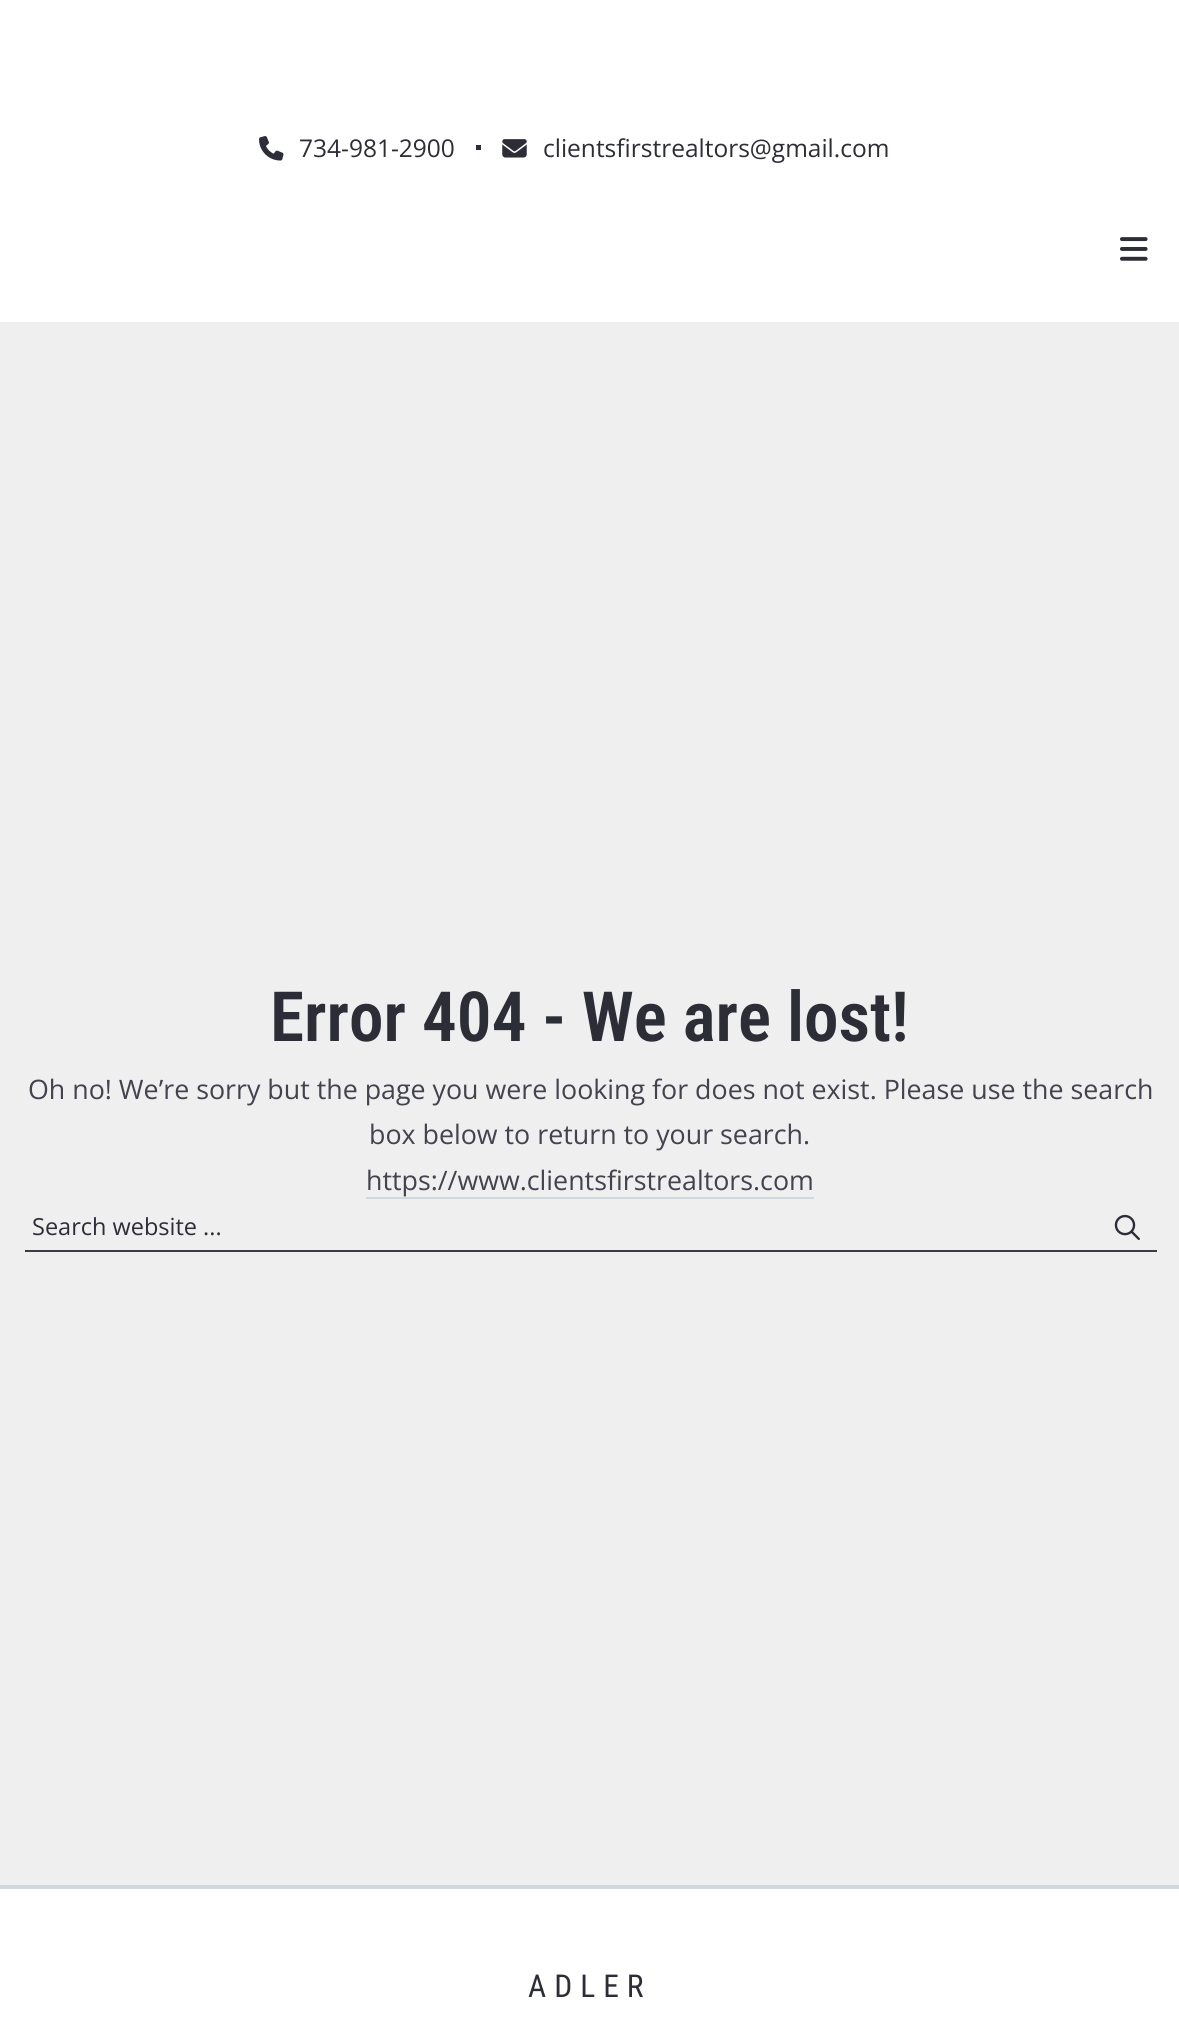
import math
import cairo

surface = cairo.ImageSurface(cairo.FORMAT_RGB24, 1179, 2041)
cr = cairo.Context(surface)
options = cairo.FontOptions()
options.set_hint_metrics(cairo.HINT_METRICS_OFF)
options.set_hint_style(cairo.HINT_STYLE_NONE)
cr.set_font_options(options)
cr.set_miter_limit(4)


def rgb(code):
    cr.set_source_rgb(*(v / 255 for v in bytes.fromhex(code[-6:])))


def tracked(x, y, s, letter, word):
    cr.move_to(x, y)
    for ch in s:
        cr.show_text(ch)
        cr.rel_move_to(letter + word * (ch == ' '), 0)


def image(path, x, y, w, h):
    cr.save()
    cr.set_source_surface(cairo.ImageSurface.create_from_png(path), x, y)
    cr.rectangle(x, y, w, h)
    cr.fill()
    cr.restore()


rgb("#ffffff")
cr.paint()
image("img/1.png", 259, 136, 25, 25)
rgb("#2d2d37")
cr.rectangle(476, 145, 5, 5)
cr.fill()
image("img/2.png", 502, 139, 25, 19)
image("img/3.png", 1120, 237, 28, 24)
for x, y, w, h, color in [
    (0, 322, 1179, 1563, "#efefef"),
    (366, 1197, 448, 2, "#d0d8dd"),
    (25, 1250, 1132, 2, "#3c3c44"),
]:
    rgb(color)
    cr.rectangle(x, y, w, h)
    cr.fill()
image("img/4.png", 1114, 1214, 26, 26)
rgb("#d0d8dd")
cr.rectangle(0, 1885, 1179, 4)
cr.fill()
cr.select_font_face("Open Sans")
cr.set_font_size(24.5)
rgb("#2d2d37")
cr.move_to(299, 157)
cr.show_text("734-981-2900")
cr.move_to(543, 157)
cr.show_text("clientsfirstrealtors@gmail.com")
cr.select_font_face("Roboto Condensed SemiBold")
cr.set_font_size(69.25)
cr.move_to(270, 1041)
cr.show_text("Error 404 - We are lost!")
cr.select_font_face("Open Sans")
cr.set_font_size(26.8)
rgb("#43434e")
for x, y, s in [
    (28, 1099, "Oh no! We’re sorry but the page you were looking for does not exist. Please use the search"),
    (369, 1144, "box below to return to your search."),
    (366, 1190, "https://www.clientsfirstrealtors.com"),
]:
    cr.move_to(x, y)
    cr.show_text(s)
cr.set_font_size(23.5)
rgb("#2d2d37")
cr.move_to(32, 1235)
cr.show_text("Search website ...")
cr.select_font_face("Roboto Condensed")
cr.set_font_size(31.5)
tracked(528, 1997, "ADLER", 8, 0)
surface.write_to_png("page.png")
